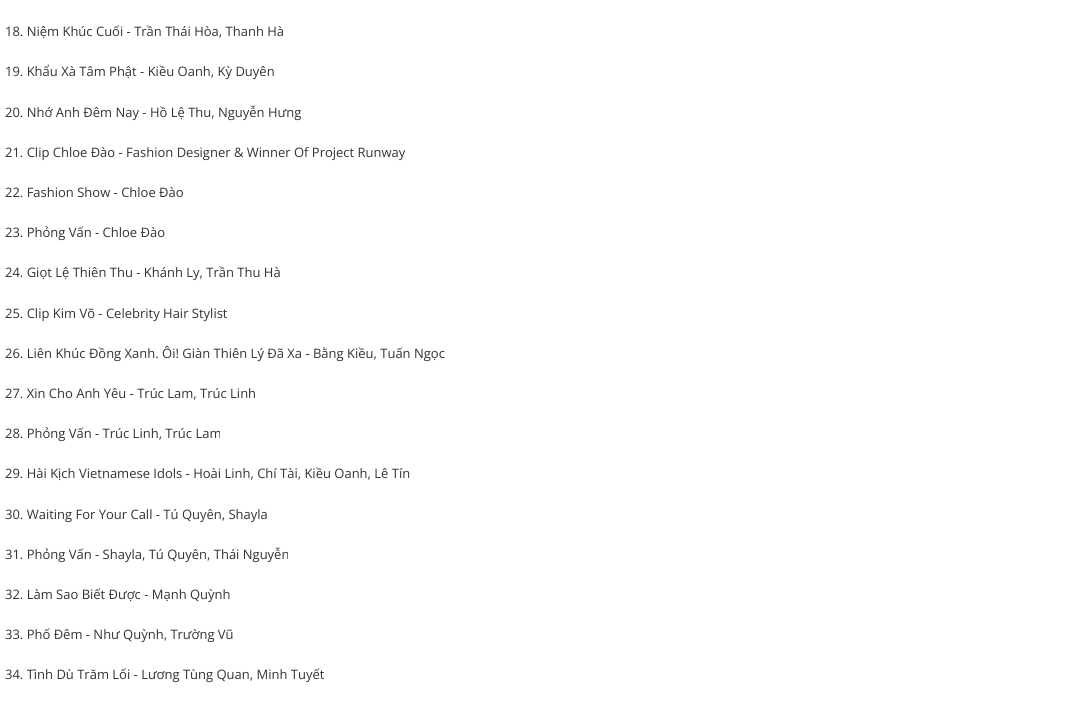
import math
import cairo

surface = cairo.ImageSurface(cairo.FORMAT_RGB24, 1079, 711)
cr = cairo.Context(surface)
options = cairo.FontOptions()
options.set_hint_metrics(cairo.HINT_METRICS_OFF)
options.set_hint_style(cairo.HINT_STYLE_NONE)
cr.set_font_options(options)
cr.set_miter_limit(4)


def rgb(code):
    cr.set_source_rgb(*(v / 255 for v in bytes.fromhex(code[-6:])))


rgb("#ffffff")
cr.paint()
cr.select_font_face("Open Sans")
cr.set_font_size(13)
rgb("#333333")
for x, y, s in [
    (5, 36, "18. Niệm Khúc Cuối - Trần Thái Hòa, Thanh Hà"),
    (5, 76, "19. Khẩu Xà Tâm Phật - Kiều Oanh, Kỳ Duyên"),
    (5, 117, "20. Nhớ Anh Đêm Nay - Hồ Lệ Thu, Nguyễn Hưng"),
    (5, 157, "21. Clip Chloe Đào - Fashion Designer & Winner Of Project Runway"),
    (5, 197, "22. Fashion Show - Chloe Đào"),
    (5, 237, "23. Phỏng Vấn - Chloe Đào"),
    (5, 277, "24. Giọt Lệ Thiên Thu - Khánh Ly, Trần Thu Hà"),
    (5, 318, "25. Clip Kim Võ - Celebrity Hair Stylist"),
    (5, 358, "26. Liên Khúc Đồng Xanh. Ôi! Giàn Thiên Lý Đã Xa - Bằng Kiều, Tuấn Ngọc"),
    (5, 398, "27. Xin Cho Anh Yêu - Trúc Lam, Trúc Linh"),
    (5, 438, "28. Phỏng Vấn - Trúc Linh, Trúc Lam"),
    (5, 478, "29. Hài Kịch Vietnamese Idols - Hoài Linh, Chí Tài, Kiều Oanh, Lê Tín"),
    (5, 519, "30. Waiting For Your Call - Tú Quyên, Shayla"),
    (5, 559, "31. Phỏng Vấn - Shayla, Tú Quyên, Thái Nguyễn"),
    (5, 599, "32. Làm Sao Biết Được - Mạnh Quỳnh"),
    (5, 639, "33. Phố Đêm - Như Quỳnh, Trường Vũ"),
    (5, 679, "34. Tình Dù Trăm Lối - Lương Tùng Quan, Minh Tuyết"),
]:
    cr.move_to(x, y)
    cr.show_text(s)
surface.write_to_png("page.png")
